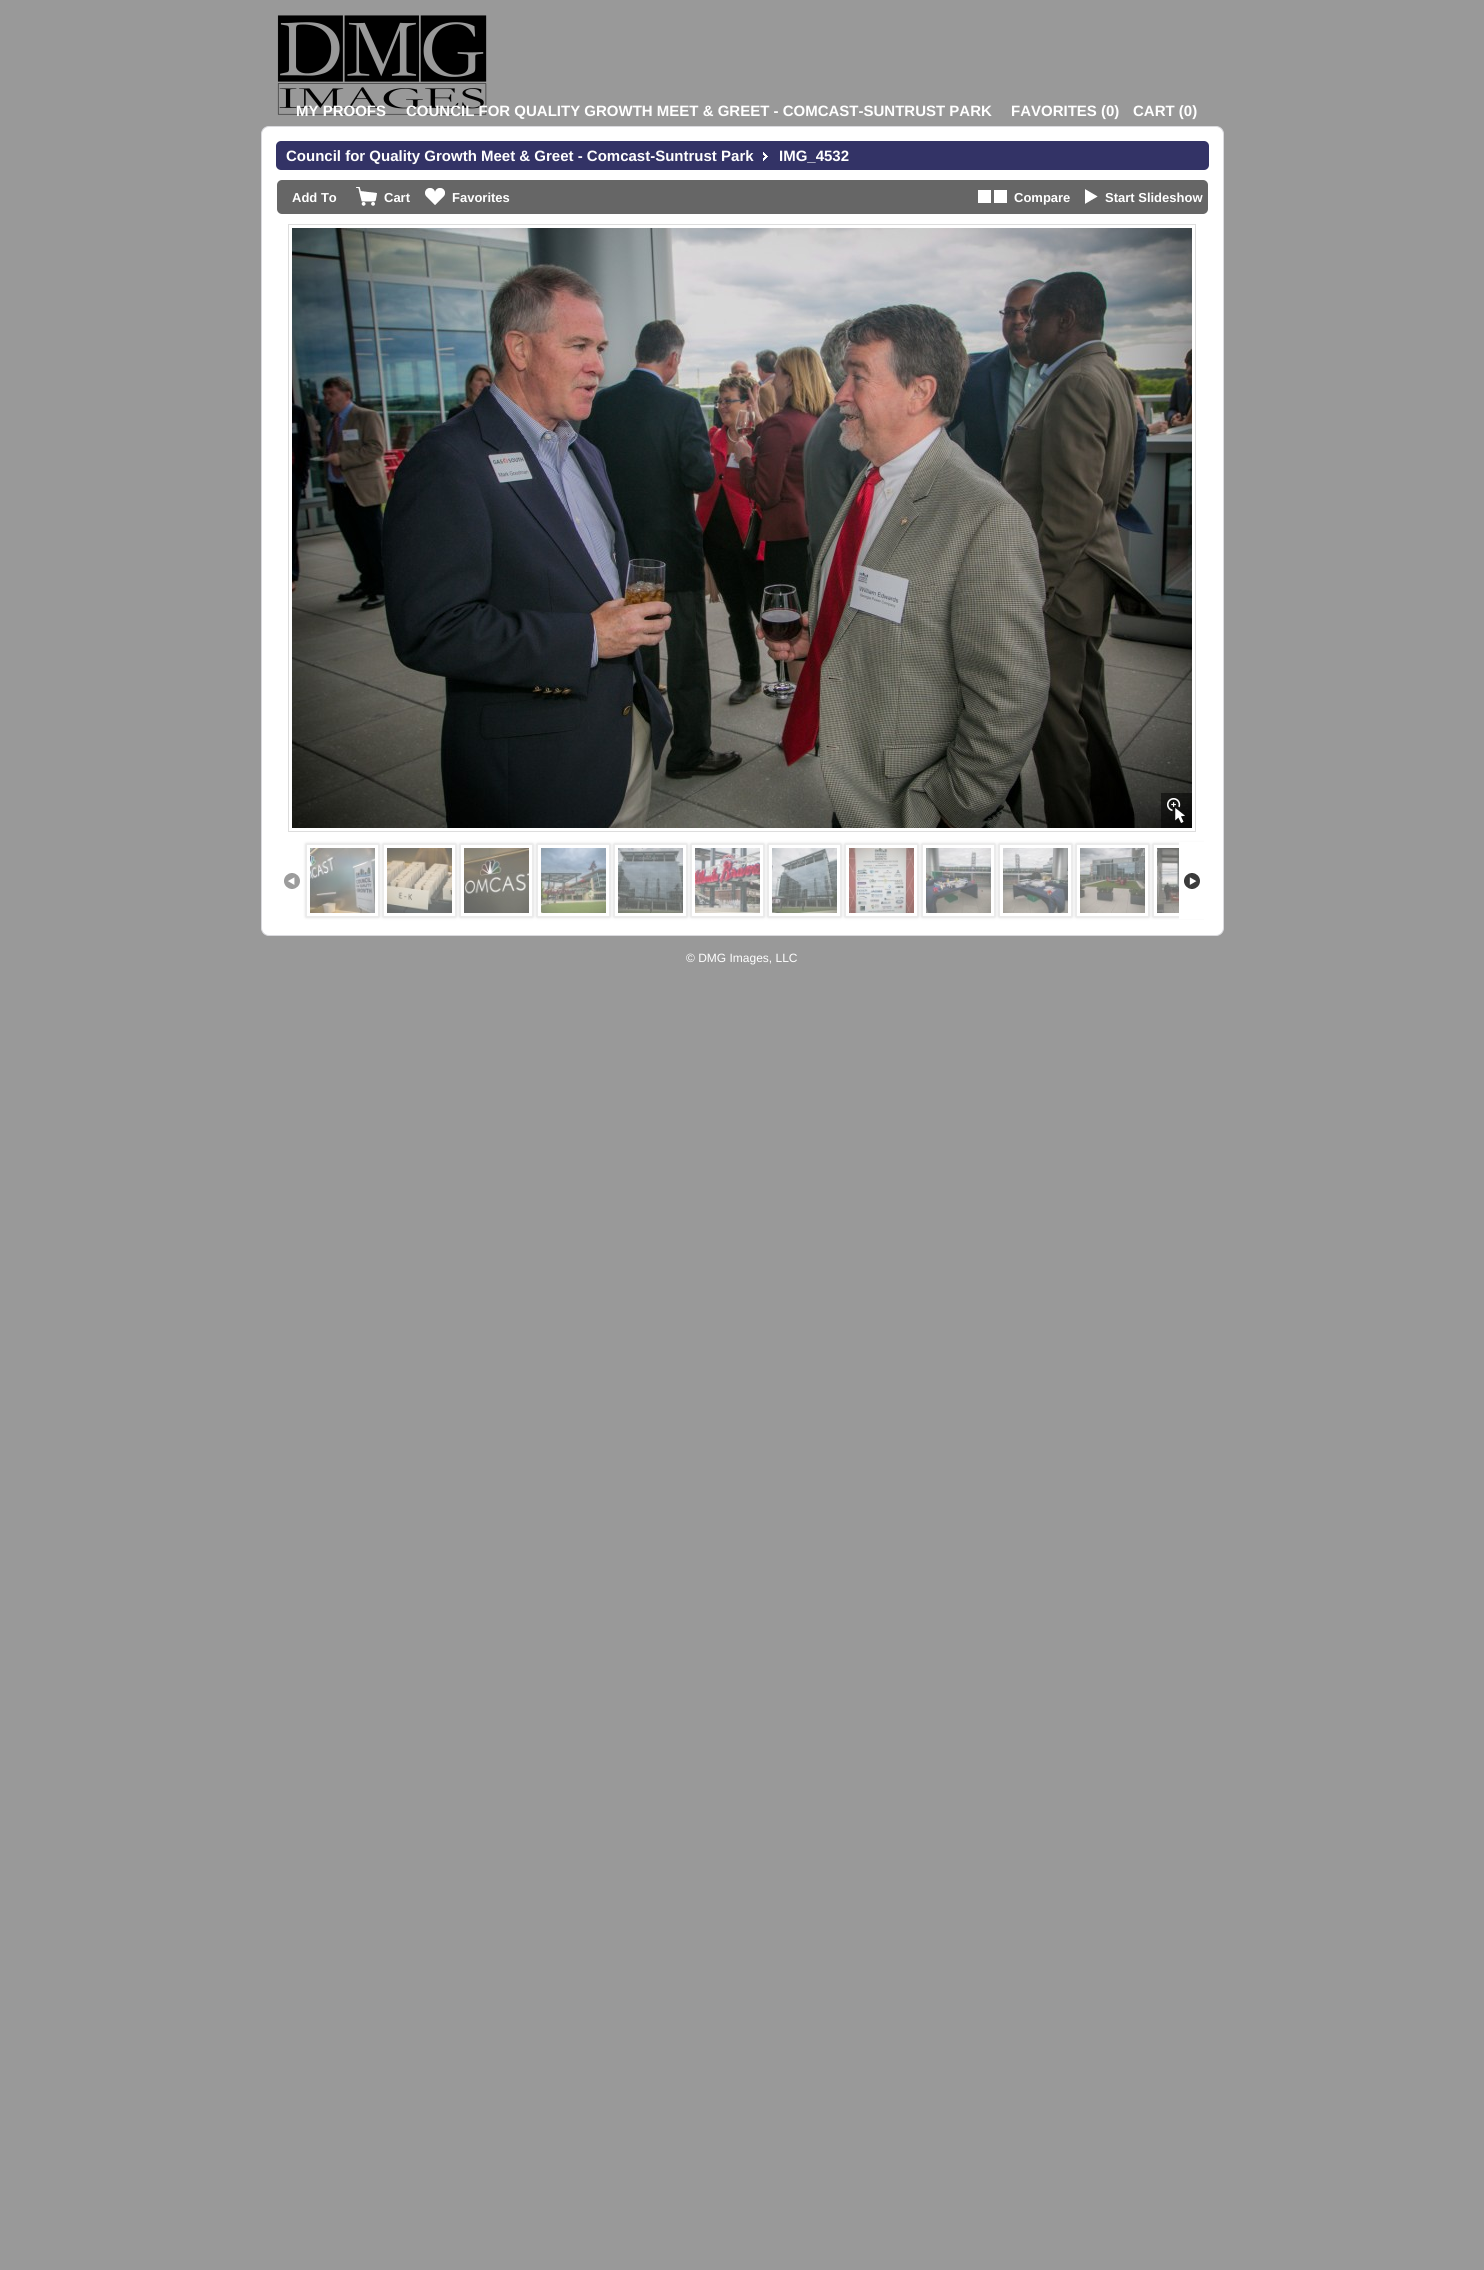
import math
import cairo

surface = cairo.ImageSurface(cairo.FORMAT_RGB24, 1484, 2270)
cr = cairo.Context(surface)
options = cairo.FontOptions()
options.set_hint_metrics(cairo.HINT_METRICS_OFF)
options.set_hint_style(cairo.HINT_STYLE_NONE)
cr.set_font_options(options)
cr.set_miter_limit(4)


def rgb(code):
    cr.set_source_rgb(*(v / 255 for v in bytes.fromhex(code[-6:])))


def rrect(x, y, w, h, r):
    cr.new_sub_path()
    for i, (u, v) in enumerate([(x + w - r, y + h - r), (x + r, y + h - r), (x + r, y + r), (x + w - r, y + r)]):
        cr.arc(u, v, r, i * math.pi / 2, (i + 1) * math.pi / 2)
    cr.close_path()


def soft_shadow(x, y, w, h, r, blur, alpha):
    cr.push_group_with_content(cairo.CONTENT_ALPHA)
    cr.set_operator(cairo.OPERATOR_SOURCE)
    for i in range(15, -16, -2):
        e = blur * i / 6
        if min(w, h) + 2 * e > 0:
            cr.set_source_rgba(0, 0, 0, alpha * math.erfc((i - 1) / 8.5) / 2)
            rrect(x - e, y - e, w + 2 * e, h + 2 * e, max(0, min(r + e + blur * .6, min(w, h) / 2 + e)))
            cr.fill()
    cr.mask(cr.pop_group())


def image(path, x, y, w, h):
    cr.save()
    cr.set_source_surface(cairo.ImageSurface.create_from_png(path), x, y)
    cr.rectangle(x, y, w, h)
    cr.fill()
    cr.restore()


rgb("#999999")
cr.paint()
image("img/1.png", 277, 15, 210, 100)
rgb("#ffffff")
rrect(261.5, 126.5, 962, 809, 7.5)
cr.fill_preserve()
rgb("#dadade")
cr.set_line_width(1)
cr.stroke()
rgb("#333366")
rrect(276, 141, 933, 29, 5)
cr.fill()
image("img/2.png", 763, 152, 5, 9)
rgb("#666666")
rrect(277, 180, 931, 34, 5)
cr.fill()
image("img/3.png", 356, 187, 21, 19)
image("img/4.png", 425, 188, 20, 17)
image("img/5.png", 978, 190, 29, 13)
image("img/6.png", 1085, 189, 13, 15)
cr.rectangle(288.5, 224.5, 907, 607)
rgb("#dddddd")
cr.stroke()
image("img/7.png", 292, 228, 900, 600)
image("img/8.png", 1161, 793, 31, 35)
cr.save()
cr.set_fill_rule(cairo.FILL_RULE_EVEN_ODD)
cr.new_path()
cr.move_to(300, 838)
cr.line_to(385, 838)
cr.line_to(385, 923)
cr.line_to(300, 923)
cr.close_path()
cr.move_to(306, 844)
cr.line_to(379, 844)
cr.line_to(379, 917)
cr.line_to(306, 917)
cr.close_path()
cr.clip()
rgb("#cccccc")
soft_shadow(306, 844, 73, 73, 0, 1.5, 1)
cr.restore()
cr.rectangle(306.5, 844.5, 72, 72)
rgb("#ebebeb")
cr.stroke()
image("img/9.png", 310, 848, 65, 65)
cr.save()
cr.set_fill_rule(cairo.FILL_RULE_EVEN_ODD)
cr.new_path()
cr.move_to(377, 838)
cr.line_to(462, 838)
cr.line_to(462, 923)
cr.line_to(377, 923)
cr.close_path()
cr.move_to(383, 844)
cr.line_to(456, 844)
cr.line_to(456, 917)
cr.line_to(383, 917)
cr.close_path()
cr.clip()
rgb("#aaaaaa")
soft_shadow(383, 844, 73, 73, 0, 1.5, 0.6)
cr.restore()
cr.rectangle(383.5, 844.5, 72, 72)
cr.stroke()
image("img/10.png", 387, 848, 65, 65)
cr.save()
cr.set_fill_rule(cairo.FILL_RULE_EVEN_ODD)
cr.new_path()
cr.move_to(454, 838)
cr.line_to(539, 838)
cr.line_to(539, 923)
cr.line_to(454, 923)
cr.close_path()
cr.move_to(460, 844)
cr.line_to(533, 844)
cr.line_to(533, 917)
cr.line_to(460, 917)
cr.close_path()
cr.clip()
rgb("#aaaaaa")
soft_shadow(460, 844, 73, 73, 0, 1.5, 0.6)
cr.restore()
cr.rectangle(460.5, 844.5, 72, 72)
cr.stroke()
image("img/11.png", 464, 848, 65, 65)
cr.save()
cr.set_fill_rule(cairo.FILL_RULE_EVEN_ODD)
cr.new_path()
cr.move_to(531, 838)
cr.line_to(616, 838)
cr.line_to(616, 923)
cr.line_to(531, 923)
cr.close_path()
cr.move_to(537, 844)
cr.line_to(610, 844)
cr.line_to(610, 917)
cr.line_to(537, 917)
cr.close_path()
cr.clip()
rgb("#aaaaaa")
soft_shadow(537, 844, 73, 73, 0, 1.5, 0.6)
cr.restore()
cr.rectangle(537.5, 844.5, 72, 72)
cr.stroke()
image("img/12.png", 541, 848, 65, 65)
cr.save()
cr.set_fill_rule(cairo.FILL_RULE_EVEN_ODD)
cr.new_path()
cr.move_to(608, 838)
cr.line_to(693, 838)
cr.line_to(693, 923)
cr.line_to(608, 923)
cr.close_path()
cr.move_to(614, 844)
cr.line_to(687, 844)
cr.line_to(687, 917)
cr.line_to(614, 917)
cr.close_path()
cr.clip()
rgb("#aaaaaa")
soft_shadow(614, 844, 73, 73, 0, 1.5, 0.6)
cr.restore()
cr.rectangle(614.5, 844.5, 72, 72)
cr.stroke()
image("img/13.png", 618, 848, 65, 65)
cr.save()
cr.set_fill_rule(cairo.FILL_RULE_EVEN_ODD)
cr.new_path()
cr.move_to(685, 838)
cr.line_to(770, 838)
cr.line_to(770, 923)
cr.line_to(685, 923)
cr.close_path()
cr.move_to(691, 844)
cr.line_to(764, 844)
cr.line_to(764, 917)
cr.line_to(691, 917)
cr.close_path()
cr.clip()
rgb("#aaaaaa")
soft_shadow(691, 844, 73, 73, 0, 1.5, 0.6)
cr.restore()
cr.rectangle(691.5, 844.5, 72, 72)
cr.stroke()
image("img/14.png", 695, 848, 65, 65)
cr.save()
cr.set_fill_rule(cairo.FILL_RULE_EVEN_ODD)
cr.new_path()
cr.move_to(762, 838)
cr.line_to(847, 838)
cr.line_to(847, 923)
cr.line_to(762, 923)
cr.close_path()
cr.move_to(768, 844)
cr.line_to(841, 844)
cr.line_to(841, 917)
cr.line_to(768, 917)
cr.close_path()
cr.clip()
rgb("#aaaaaa")
soft_shadow(768, 844, 73, 73, 0, 1.5, 0.6)
cr.restore()
cr.rectangle(768.5, 844.5, 72, 72)
cr.stroke()
image("img/15.png", 772, 848, 65, 65)
cr.save()
cr.set_fill_rule(cairo.FILL_RULE_EVEN_ODD)
cr.new_path()
cr.move_to(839, 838)
cr.line_to(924, 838)
cr.line_to(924, 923)
cr.line_to(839, 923)
cr.close_path()
cr.move_to(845, 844)
cr.line_to(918, 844)
cr.line_to(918, 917)
cr.line_to(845, 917)
cr.close_path()
cr.clip()
rgb("#aaaaaa")
soft_shadow(845, 844, 73, 73, 0, 1.5, 0.6)
cr.restore()
cr.rectangle(845.5, 844.5, 72, 72)
cr.stroke()
image("img/16.png", 849, 848, 65, 65)
cr.save()
cr.set_fill_rule(cairo.FILL_RULE_EVEN_ODD)
cr.new_path()
cr.move_to(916, 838)
cr.line_to(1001, 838)
cr.line_to(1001, 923)
cr.line_to(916, 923)
cr.close_path()
cr.move_to(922, 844)
cr.line_to(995, 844)
cr.line_to(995, 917)
cr.line_to(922, 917)
cr.close_path()
cr.clip()
rgb("#aaaaaa")
soft_shadow(922, 844, 73, 73, 0, 1.5, 0.6)
cr.restore()
cr.rectangle(922.5, 844.5, 72, 72)
cr.stroke()
image("img/17.png", 926, 848, 65, 65)
cr.save()
cr.set_fill_rule(cairo.FILL_RULE_EVEN_ODD)
cr.new_path()
cr.move_to(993, 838)
cr.line_to(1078, 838)
cr.line_to(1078, 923)
cr.line_to(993, 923)
cr.close_path()
cr.move_to(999, 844)
cr.line_to(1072, 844)
cr.line_to(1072, 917)
cr.line_to(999, 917)
cr.close_path()
cr.clip()
rgb("#aaaaaa")
soft_shadow(999, 844, 73, 73, 0, 1.5, 0.6)
cr.restore()
cr.rectangle(999.5, 844.5, 72, 72)
cr.stroke()
image("img/18.png", 1003, 848, 65, 65)
cr.save()
cr.set_fill_rule(cairo.FILL_RULE_EVEN_ODD)
cr.new_path()
cr.move_to(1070, 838)
cr.line_to(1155, 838)
cr.line_to(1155, 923)
cr.line_to(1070, 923)
cr.close_path()
cr.move_to(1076, 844)
cr.line_to(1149, 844)
cr.line_to(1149, 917)
cr.line_to(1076, 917)
cr.close_path()
cr.clip()
rgb("#aaaaaa")
soft_shadow(1076, 844, 73, 73, 0, 1.5, 0.6)
cr.restore()
cr.rectangle(1076.5, 844.5, 72, 72)
cr.stroke()
image("img/19.png", 1080, 848, 65, 65)
cr.save()
cr.rectangle(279, 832, 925, 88)
cr.clip()
cr.set_fill_rule(cairo.FILL_RULE_EVEN_ODD)
cr.new_path()
cr.move_to(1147, 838)
cr.line_to(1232, 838)
cr.line_to(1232, 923)
cr.line_to(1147, 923)
cr.close_path()
cr.move_to(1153, 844)
cr.line_to(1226, 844)
cr.line_to(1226, 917)
cr.line_to(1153, 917)
cr.close_path()
cr.clip()
rgb("#aaaaaa")
soft_shadow(1153, 844, 73, 73, 0, 1.5, 0.6)
cr.restore()
cr.save()
cr.rectangle(279, 832, 925, 88)
cr.clip()
cr.rectangle(1153.5, 844.5, 72, 72)
cr.stroke()
cr.restore()
image("img/20.png", 1157, 848, 22, 65)
image("img/21.png", 284, 873, 16, 16)
rgb("#ffffff")
cr.rectangle(1179, 842, 25, 77)
cr.fill()
image("img/22.png", 1184, 873, 16, 16)
cr.select_font_face("Liberation Sans", cairo.FONT_SLANT_NORMAL, cairo.FONT_WEIGHT_BOLD)
cr.set_font_size(15)
for x, y, s in [
    (296, 116, "MY PROOFS"),
    (406, 116, "COUNCIL FOR QUALITY GROWTH MEET & GREET - COMCAST-SUNTRUST PARK"),
    (1011, 116, "FAVORITES (0)"),
    (1133, 116, "CART (0)"),
    (286, 161, "Council for Quality Growth Meet & Greet - Comcast-Suntrust Park"),
    (779, 161, "IMG_4532"),
]:
    cr.move_to(x, y)
    cr.show_text(s)
cr.set_font_size(13)
for x, y, s in [
    (292, 202, "Add To"),
    (384, 202, "Cart"),
    (452, 202, "Favorites"),
    (1014, 202, "Compare"),
    (1105, 202, "Start Slideshow"),
]:
    cr.move_to(x, y)
    cr.show_text(s)
cr.select_font_face("Liberation Sans")
cr.set_font_size(12)
cr.move_to(686, 962)
cr.show_text("© DMG Images, LLC")
surface.write_to_png("page.png")
